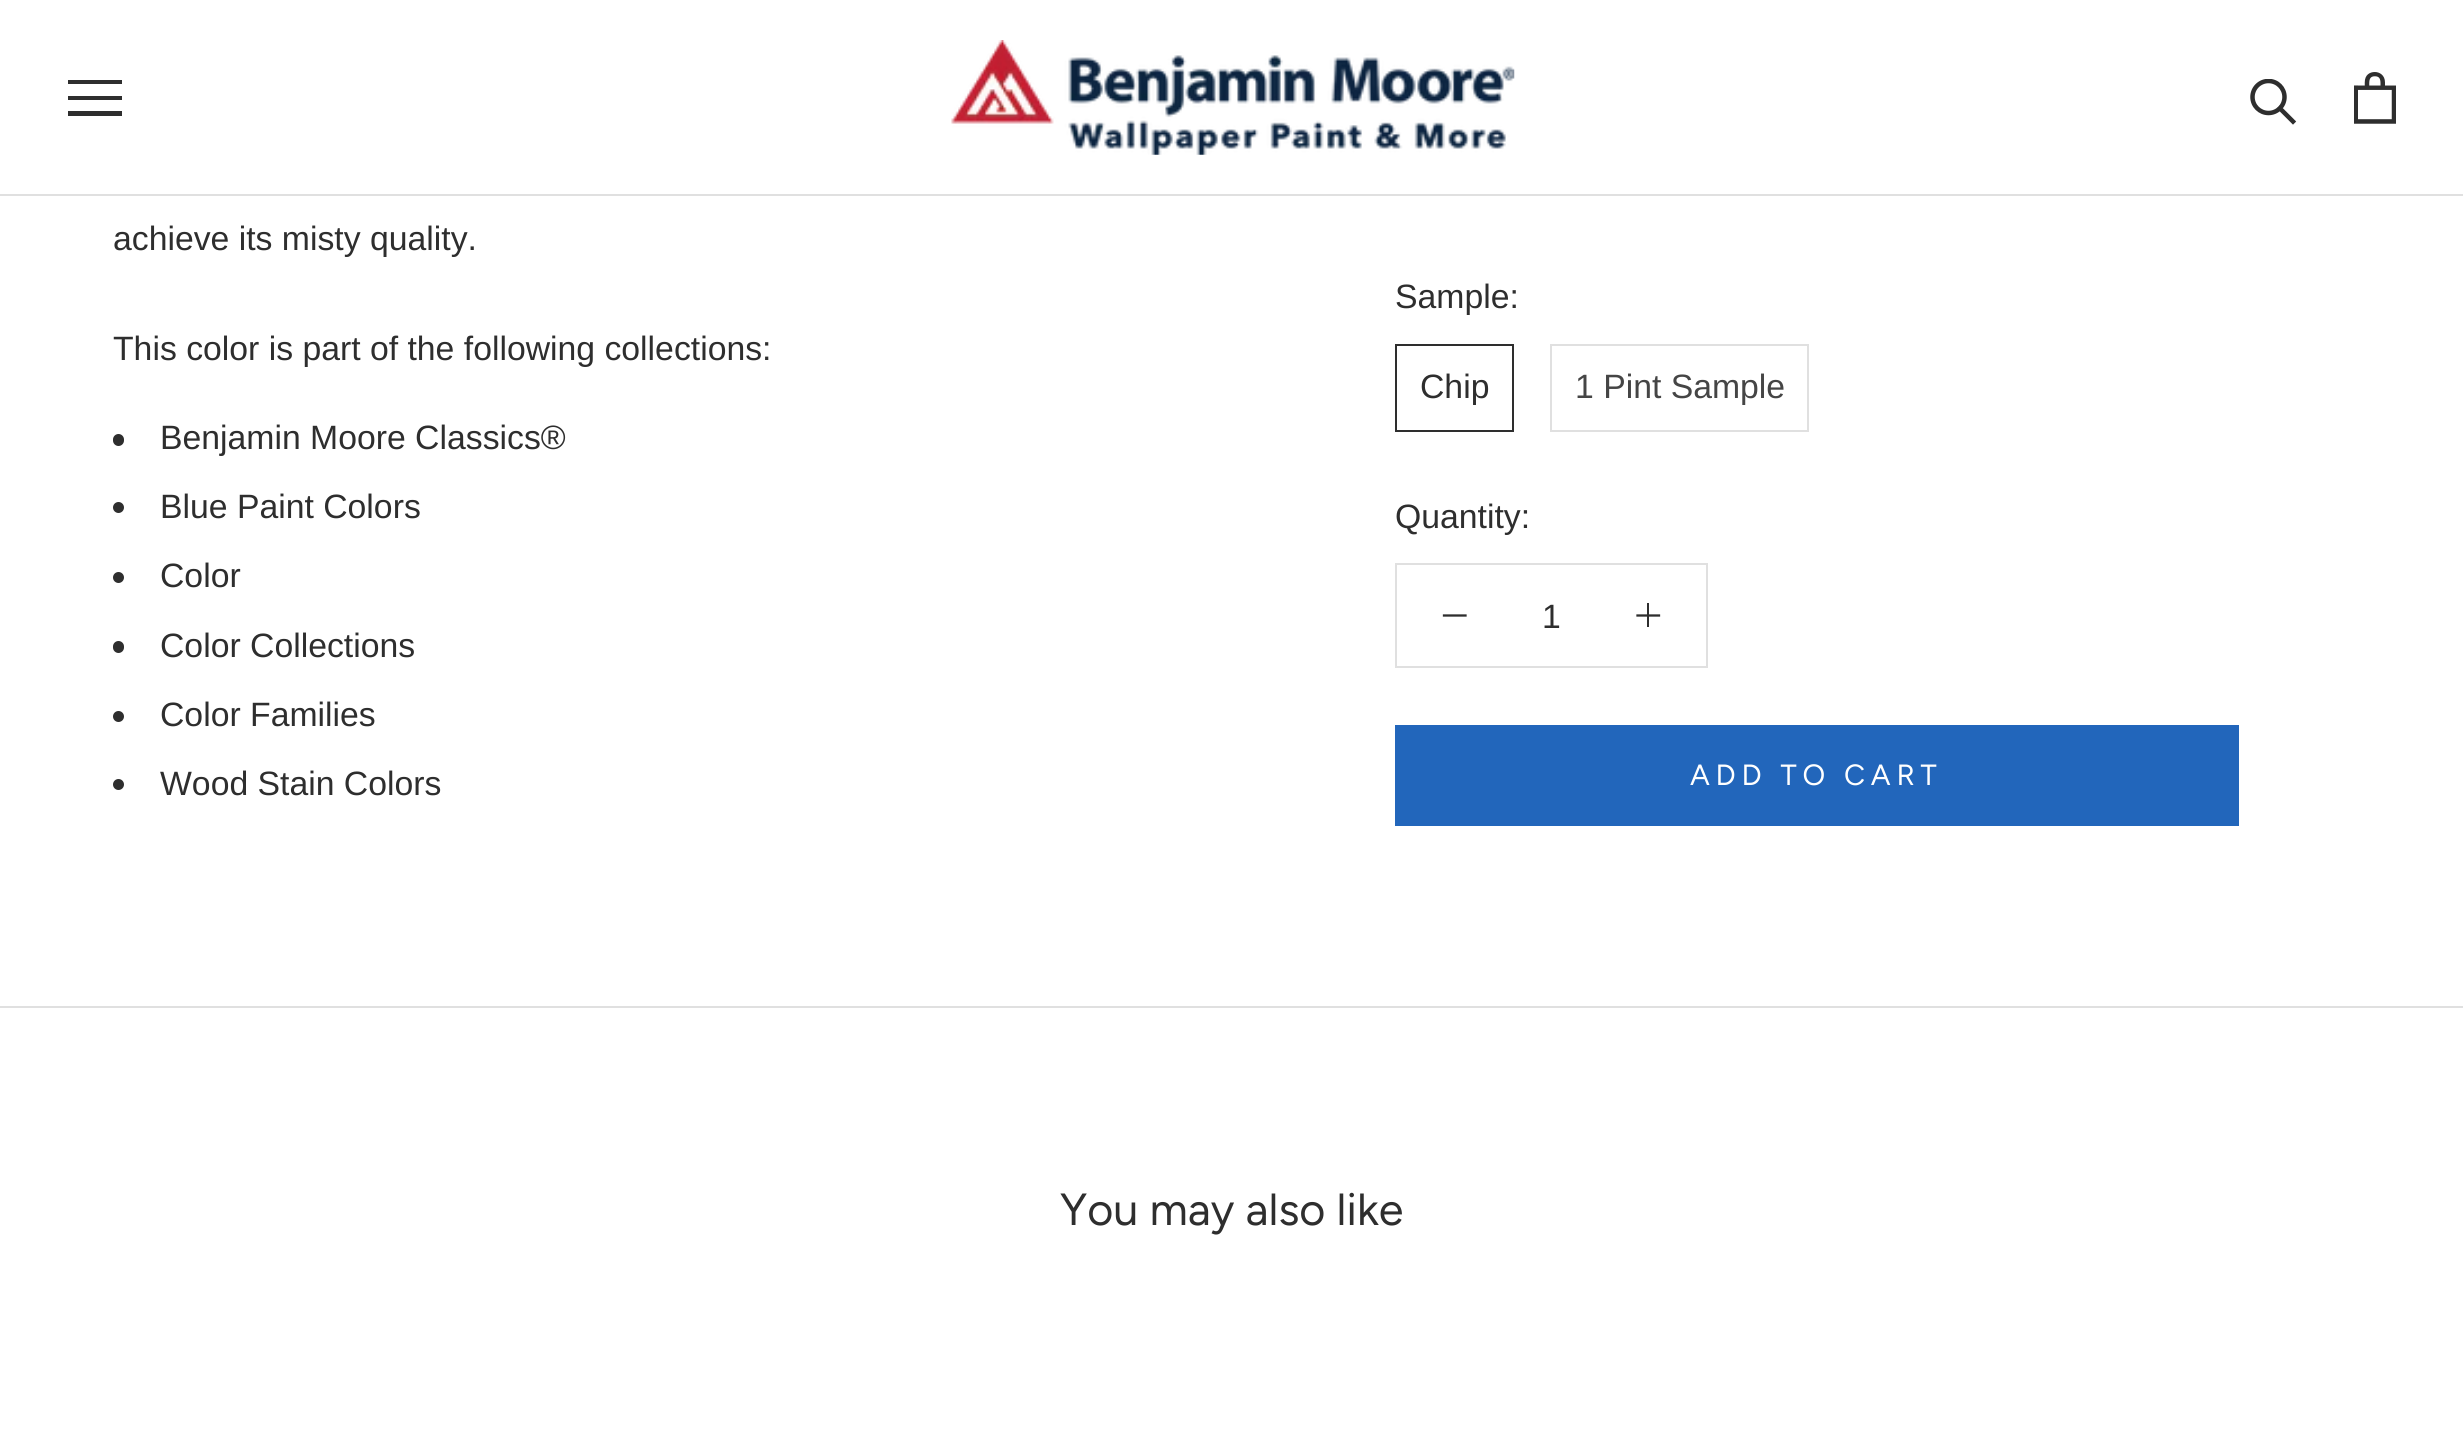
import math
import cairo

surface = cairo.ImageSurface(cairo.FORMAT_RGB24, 2463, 1450)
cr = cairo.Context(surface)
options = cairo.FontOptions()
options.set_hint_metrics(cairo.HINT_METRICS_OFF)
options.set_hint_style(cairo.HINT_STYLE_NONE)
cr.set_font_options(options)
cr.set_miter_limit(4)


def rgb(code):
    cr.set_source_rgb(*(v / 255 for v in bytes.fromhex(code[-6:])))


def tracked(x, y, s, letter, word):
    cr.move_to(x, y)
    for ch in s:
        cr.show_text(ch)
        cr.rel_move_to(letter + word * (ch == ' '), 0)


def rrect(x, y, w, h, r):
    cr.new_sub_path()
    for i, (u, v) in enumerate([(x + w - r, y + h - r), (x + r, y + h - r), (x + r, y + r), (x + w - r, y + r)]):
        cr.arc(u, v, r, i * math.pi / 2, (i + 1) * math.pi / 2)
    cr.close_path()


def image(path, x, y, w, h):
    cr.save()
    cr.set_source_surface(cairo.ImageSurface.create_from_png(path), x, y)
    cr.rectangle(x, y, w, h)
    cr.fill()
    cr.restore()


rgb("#ffffff")
cr.paint()
rgb("#e0e0e0")
cr.rectangle(0, 194, 2463, 2)
cr.fill()
rgb("#2e2e2e")
cr.new_path()
cr.move_to(68, 116)
cr.line_to(68, 111)
cr.line_to(122, 111)
cr.line_to(122, 116)
cr.close_path()
cr.move_to(68, 96)
cr.line_to(122, 96)
cr.line_to(122, 100)
cr.line_to(68, 100)
cr.close_path()
cr.move_to(68, 80)
cr.line_to(122, 80)
cr.line_to(122, 84)
cr.line_to(68, 84)
cr.close_path()
cr.fill()
image("img/1.png", 951, 40, 564, 115)
cr.new_path()
cr.move_to(2293, 121.5)
cr.line_to(2280, 108.5)
cr.set_line_width(4.5)
cr.set_line_cap(cairo.LINE_CAP_SQUARE)
cr.stroke()
cr.save()
cr.rectangle(2250, 79, 47, 47)
cr.clip()
cr.arc(2268.5, 97, 16, 0, 2 * math.pi)
cr.set_line_cap(cairo.LINE_CAP_BUTT)
cr.stroke()
cr.restore()
image("img/2.png", 2354, 72, 42, 52)
rrect(113, 434, 11, 12, 5.5)
cr.fill()
cr.arc(118.5, 507.5, 5.5, 0, 2 * math.pi)
cr.fill()
cr.arc(118.5, 577.5, 5.5, 0, 2 * math.pi)
cr.fill()
rrect(113, 641, 11, 12, 5.5)
cr.fill()
cr.arc(118.5, 716.5, 5.5, 0, 2 * math.pi)
cr.fill()
cr.arc(118.5, 784.5, 5.5, 0, 2 * math.pi)
cr.fill()
cr.rectangle(1396, 345, 117, 86)
cr.set_line_width(2)
cr.set_line_cap(cairo.LINE_CAP_BUTT)
cr.stroke()
cr.rectangle(1551, 345, 257, 86)
rgb("#e0e0e0")
cr.stroke()
cr.rectangle(1396, 564, 311, 103)
cr.stroke()
cr.new_path()
cr.move_to(1444, 615.5)
cr.line_to(1465.5, 615.5)
rgb("#2e2e2e")
cr.set_line_width(2.3)
cr.set_line_cap(cairo.LINE_CAP_SQUARE)
cr.stroke()
cr.rectangle(1647, 603, 2, 24)
cr.fill()
cr.new_path()
cr.move_to(1637.5, 615.5)
cr.line_to(1659, 615.5)
cr.stroke()
cr.rectangle(1396, 726, 842, 99)
rgb("#2266bb")
cr.set_line_width(2)
cr.set_line_cap(cairo.LINE_CAP_BUTT)
cr.stroke()
cr.rectangle(1397, 727, 840, 97)
cr.fill()
rgb("#e0e0e0")
cr.rectangle(0, 1006, 2463, 2)
cr.fill()
cr.select_font_face("Liberation Sans")
cr.set_font_size(33.75)
rgb("#2e2e2e")
for x, y, s in [
    (113, 250, "achieve its misty quality."),
    (113, 360, "This color is part of the following collections:"),
    (160, 449, "Benjamin Moore Classics®"),
    (160, 518, "Blue Paint Colors"),
    (160, 587, "Color"),
    (160, 657, "Color Collections"),
    (160, 726, "Color Families"),
    (160, 795, "Wood Stain Colors"),
    (1395, 308, "Sample:"),
    (1420, 398, "Chip"),
]:
    cr.move_to(x, y)
    cr.show_text(s)
rgb("#454545")
cr.move_to(1575, 398)
cr.show_text("1 Pint Sample")
rgb("#2e2e2e")
cr.move_to(1395, 528)
cr.show_text("Quantity:")
cr.move_to(1542, 628)
cr.show_text("1")
cr.select_font_face("Figtree")
cr.set_font_size(29.25)
rgb("#ffffff")
tracked(1690, 785, "ADD TO CART", 5.8, 0)
cr.set_font_size(45)
rgb("#2e2e2e")
cr.move_to(1060, 1225)
cr.show_text("You may also like")
surface.write_to_png("page.png")
